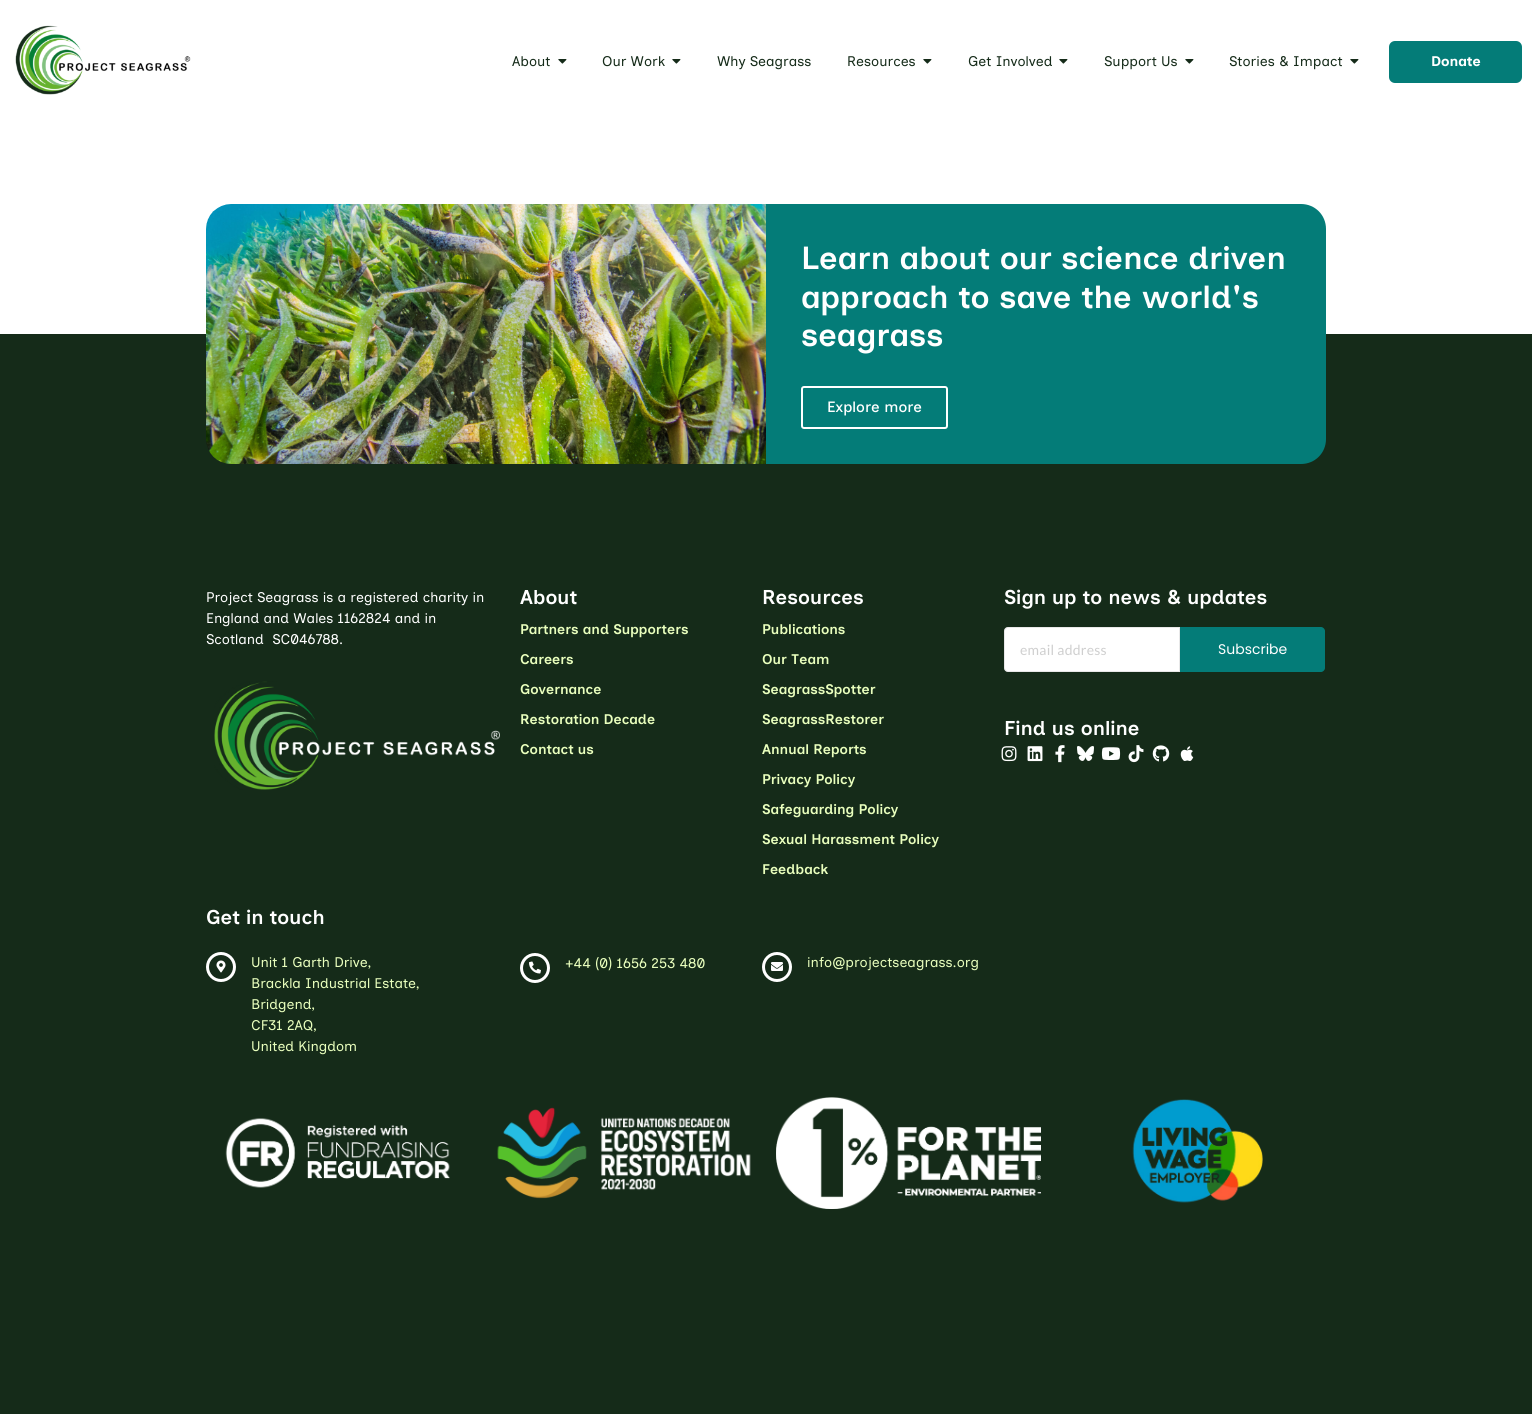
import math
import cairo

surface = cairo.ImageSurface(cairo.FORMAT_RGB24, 1532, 1414)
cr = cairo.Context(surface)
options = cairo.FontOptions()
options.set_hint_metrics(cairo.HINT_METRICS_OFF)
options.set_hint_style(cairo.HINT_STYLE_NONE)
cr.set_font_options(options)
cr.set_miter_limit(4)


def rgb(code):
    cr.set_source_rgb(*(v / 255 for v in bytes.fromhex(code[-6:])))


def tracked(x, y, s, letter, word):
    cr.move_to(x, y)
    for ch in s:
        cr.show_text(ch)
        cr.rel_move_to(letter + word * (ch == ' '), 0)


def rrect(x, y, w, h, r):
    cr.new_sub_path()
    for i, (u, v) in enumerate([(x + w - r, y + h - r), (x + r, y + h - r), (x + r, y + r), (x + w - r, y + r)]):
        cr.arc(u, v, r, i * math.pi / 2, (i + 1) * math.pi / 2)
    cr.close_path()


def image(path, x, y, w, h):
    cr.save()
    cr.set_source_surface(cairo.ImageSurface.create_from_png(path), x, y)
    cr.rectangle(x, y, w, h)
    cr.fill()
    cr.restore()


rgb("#ffffff")
cr.paint()
image("img/1.png", 15, 25, 176, 70)
image("img/2.png", 558, 59, 9, 5)
image("img/2.png", 672, 59, 9, 5)
image("img/2.png", 923, 59, 9, 5)
image("img/2.png", 1059, 59, 9, 5)
image("img/2.png", 1185, 59, 9, 5)
image("img/2.png", 1350, 59, 9, 5)
rgb("#047c78")
rrect(1389, 41, 133, 42, 6)
cr.fill()
rgb("#152b19")
cr.rectangle(0, 334, 1532, 1080)
cr.fill()
image("img/3.png", 206, 204, 560, 260)
rgb("#047c78")
cr.new_path()
cr.move_to(766, 204)
cr.line_to(1301, 204)
cr.curve_to(1315, 204, 1326, 215, 1326, 229)
cr.line_to(1326, 439)
cr.curve_to(1326, 453, 1315, 464, 1301, 464)
cr.line_to(766, 464)
cr.close_path()
cr.fill()
rrect(802, 387, 145, 41, 2)
rgb("#ffffff")
cr.stroke()
image("img/4.png", 214, 681, 286, 109)
cr.new_path()
cr.move_to(1008, 627.5)
cr.line_to(1179.5, 627.5)
cr.line_to(1179.5, 671.5)
cr.line_to(1008, 671.5)
cr.curve_to(1006, 671.5, 1004.5, 670, 1004.5, 668)
cr.line_to(1004.5, 631)
cr.curve_to(1004.5, 629, 1006, 627.5, 1008, 627.5)
cr.close_path()
cr.fill_preserve()
rgb("#e8e8e8")
cr.set_line_width(1)
cr.stroke()
rgb("#047c78")
cr.new_path()
cr.move_to(1180, 627)
cr.line_to(1321, 627)
cr.curve_to(1323, 627, 1325, 629, 1325, 631)
cr.line_to(1325, 668)
cr.curve_to(1325, 670, 1323, 672, 1321, 672)
cr.line_to(1180, 672)
cr.close_path()
cr.fill()
image("img/5.png", 1001, 746, 16, 16)
image("img/6.png", 1027, 746, 16, 16)
image("img/7.png", 1055, 745, 10, 18)
image("img/8.png", 1077, 746, 17, 15)
image("img/9.png", 1101, 747, 20, 13)
image("img/10.png", 1128, 745, 16, 18)
image("img/11.png", 1152, 745, 18, 17)
image("img/12.png", 1180, 746, 14, 15)
cr.arc(221, 967, 13.5, 0, 2 * math.pi)
rgb("#ffffff")
cr.set_line_width(3)
cr.stroke()
image("img/13.png", 216, 960, 10, 13)
cr.arc(535, 968, 13.5, 0, 2 * math.pi)
cr.stroke()
image("img/14.png", 529, 961, 12, 13)
cr.arc(777, 967, 13.5, 0, 2 * math.pi)
cr.stroke()
image("img/15.png", 771, 962, 12, 9)
image("img/16.png", 225, 1118, 225, 70)
image("img/17.png", 497, 1107, 254, 92)
image("img/18.png", 776, 1097, 265, 112)
image("img/19.png", 1132, 1099, 131, 104)
cr.select_font_face("Inclusive Sans")
cr.set_font_size(14)
rgb("#152b19")
for x, y, s in [
    (512, 66, "About"),
    (602, 66, "Our Work"),
    (717, 66, "Why Seagrass"),
    (847, 66, "Resources"),
    (968, 66, "Get Involved"),
    (1104, 66, "Support Us"),
    (1229, 66, "Stories & Impact"),
]:
    cr.move_to(x, y)
    cr.show_text(s)
cr.select_font_face("Inclusive Sans", cairo.FONT_SLANT_NORMAL, cairo.FONT_WEIGHT_BOLD)
rgb("#ffffff")
cr.move_to(1431, 66)
cr.show_text("Donate")
cr.select_font_face("Inclusive Sans SemiBold")
cr.set_font_size(32)
for x, y, s in [
    (801, 269, "Learn about our science driven"),
    (801, 308, "approach to save the world's"),
    (801, 346, "seagrass"),
]:
    cr.move_to(x, y)
    cr.show_text(s)
cr.select_font_face("Inclusive Sans Medium")
cr.set_font_size(15)
cr.move_to(827, 412)
cr.show_text("Explore more")
cr.select_font_face("Inclusive Sans")
cr.set_font_size(14)
for x, y, s in [
    (206, 602, "Project Seagrass is a registered charity in"),
    (206, 623, "England and Wales 1162824 and in"),
    (206, 644, "Scotland  SC046788."),
]:
    cr.move_to(x, y)
    cr.show_text(s)
cr.select_font_face("Inclusive Sans SemiBold")
cr.set_font_size(20)
cr.move_to(520, 604)
cr.show_text("About")
cr.set_font_size(14)
rgb("#e9ffbd")
for x, y, s in [
    (520, 634, "Partners and Supporters"),
    (520, 664, "Careers"),
    (520, 694, "Governance"),
    (520, 724, "Restoration Decade"),
    (520, 754, "Contact us"),
]:
    cr.move_to(x, y)
    cr.show_text(s)
cr.set_font_size(20)
rgb("#ffffff")
cr.move_to(762, 604)
cr.show_text("Resources")
cr.set_font_size(14)
rgb("#e9ffbd")
for x, y, s in [
    (762, 634, "Publications"),
    (762, 664, "Our Team"),
    (762, 694, "SeagrassSpotter"),
    (762, 724, "SeagrassRestorer"),
    (762, 754, "Annual Reports"),
    (762, 784, "Privacy Policy"),
    (762, 814, "Safeguarding Policy"),
    (762, 844, "Sexual Harassment Policy"),
    (762, 874, "Feedback"),
]:
    cr.move_to(x, y)
    cr.show_text(s)
cr.set_font_size(20)
rgb("#ffffff")
cr.move_to(1004, 604)
cr.show_text("Sign up to news & updates")
cr.select_font_face("Lato")
cr.set_font_size(14)
rgb("#cfcfcf")
tracked(1020, 655, "email address", 0.25, 0)
cr.select_font_face("Poppins")
rgb("#ffffff")
cr.move_to(1218, 654)
cr.show_text("Subscribe")
cr.select_font_face("Inclusive Sans SemiBold")
cr.set_font_size(20)
cr.move_to(1004, 735)
cr.show_text("Find us online")
cr.move_to(206, 924)
cr.show_text("Get in touch")
cr.select_font_face("Inclusive Sans")
cr.set_font_size(14)
rgb("#e9ffbd")
for x, y, s in [
    (251, 967, "Unit 1 Garth Drive,"),
    (251, 988, "Brackla Industrial Estate,"),
    (251, 1009, "Bridgend,"),
    (251, 1030, "CF31 2AQ,"),
    (251, 1051, "United Kingdom"),
    (565, 968, "+44 (0) 1656 253 480"),
    (807, 967, "info@projectseagrass.org"),
]:
    cr.move_to(x, y)
    cr.show_text(s)
surface.write_to_png("page.png")
